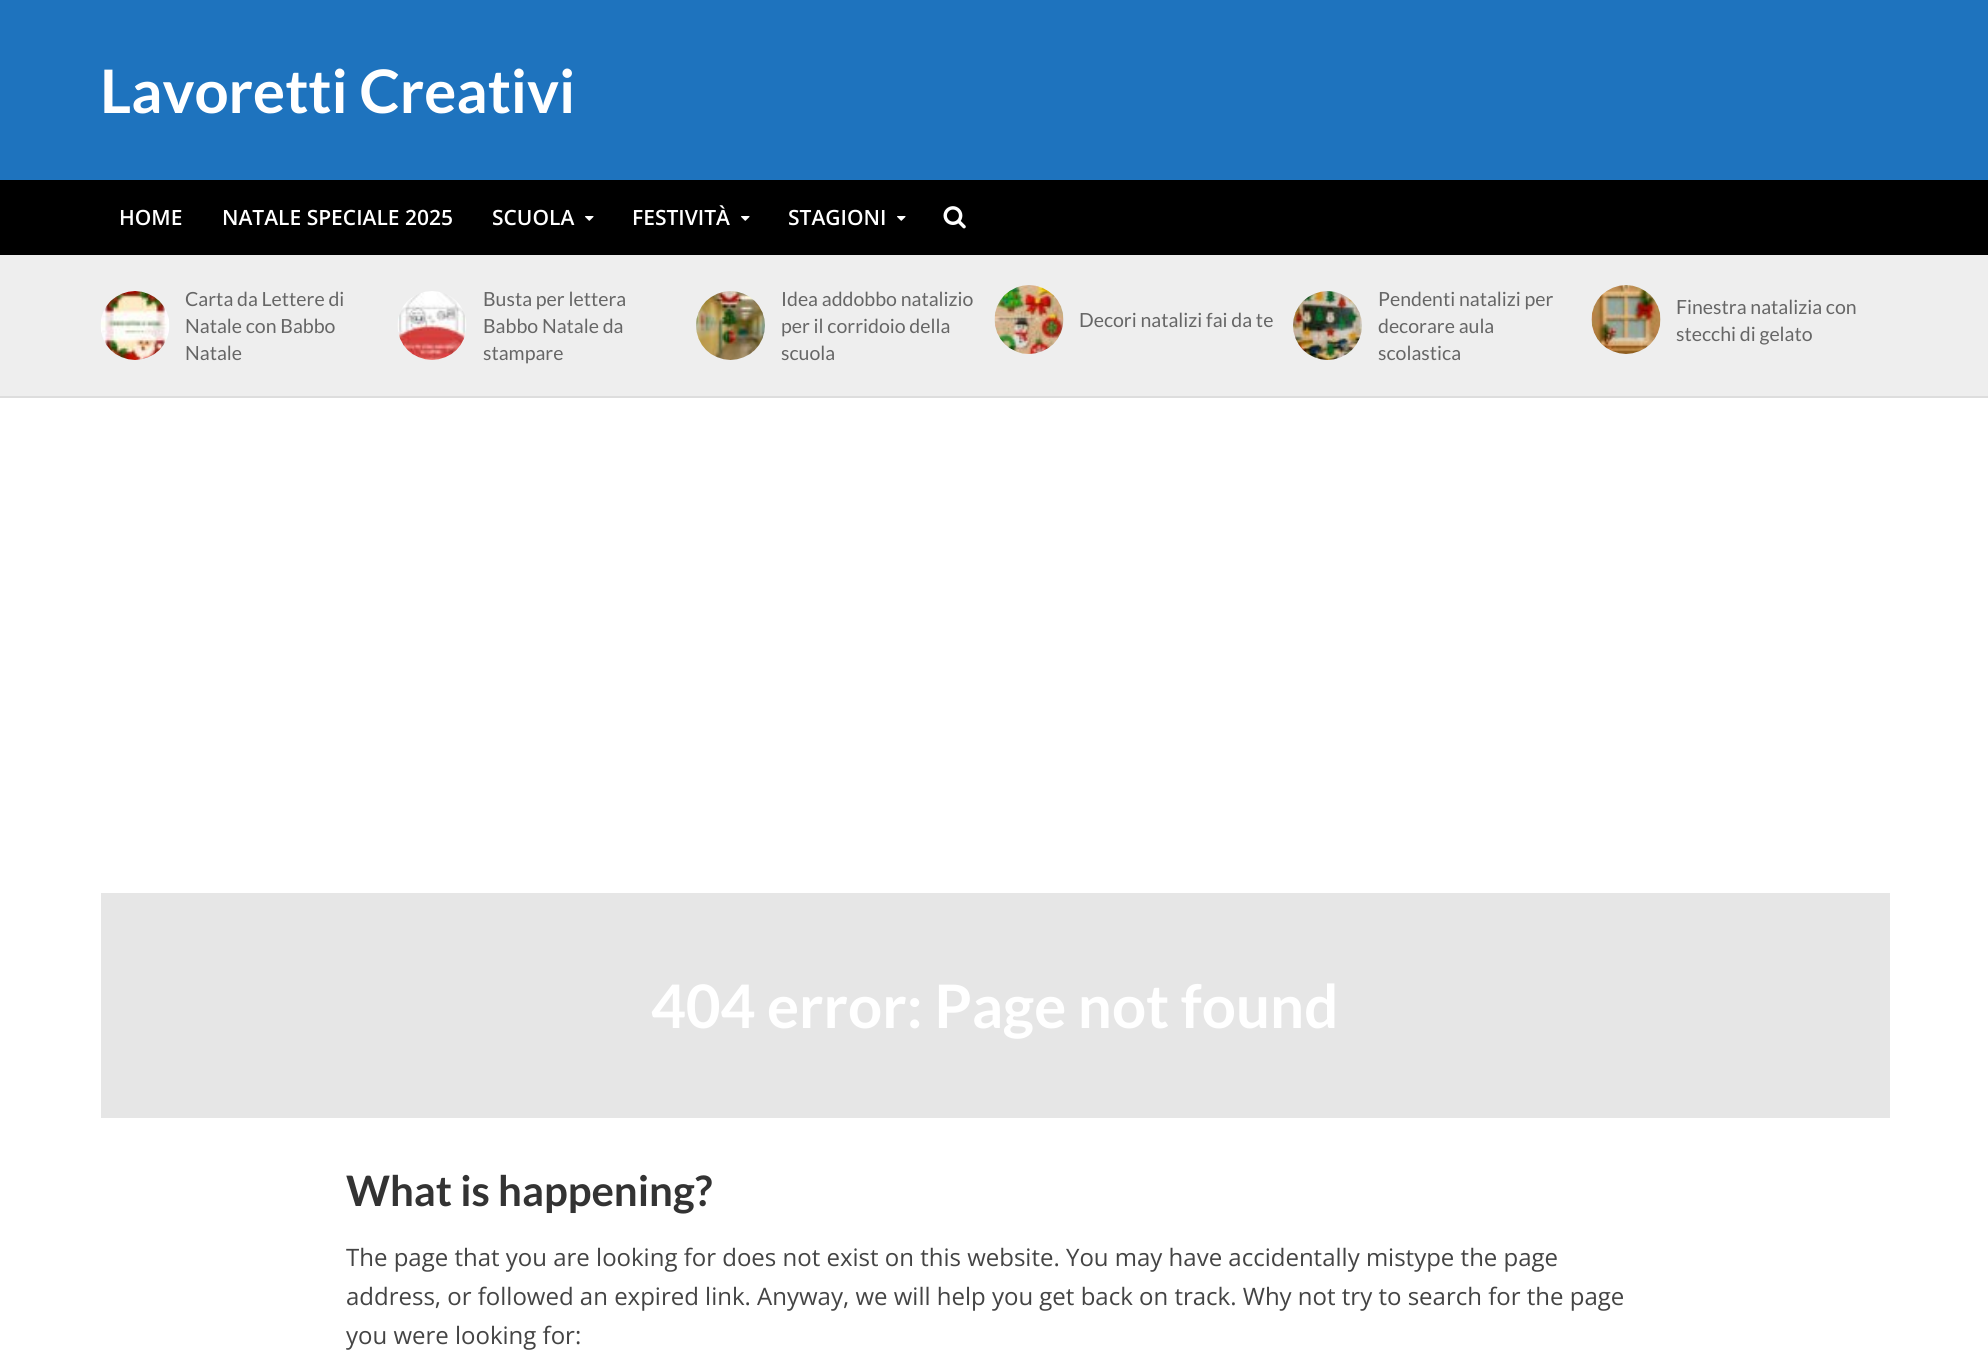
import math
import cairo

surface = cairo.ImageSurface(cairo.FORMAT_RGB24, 1988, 1357)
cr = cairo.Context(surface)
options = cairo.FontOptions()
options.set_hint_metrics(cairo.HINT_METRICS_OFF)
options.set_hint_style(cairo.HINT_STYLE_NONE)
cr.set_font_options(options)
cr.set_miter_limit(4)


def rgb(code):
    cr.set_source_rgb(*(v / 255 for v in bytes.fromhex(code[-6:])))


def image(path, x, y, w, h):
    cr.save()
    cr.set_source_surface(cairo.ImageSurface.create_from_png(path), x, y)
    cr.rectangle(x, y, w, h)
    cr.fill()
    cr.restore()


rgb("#eeeeee")
cr.paint()
rgb("#1e73be")
cr.rectangle(0, 0, 1988, 180)
cr.fill()
rgb("#000000")
cr.rectangle(0, 180, 1988, 75)
cr.fill()
image("img/1.png", 585, 216, 9, 5)
image("img/1.png", 741, 216, 9, 5)
image("img/1.png", 897, 216, 9, 5)
image("img/2.png", 943, 206, 23, 23)
image("img/3.png", 100, 291, 70, 69)
image("img/4.png", 397, 291, 70, 69)
image("img/5.png", 696, 291, 69, 69)
image("img/6.png", 994, 285, 70, 69)
image("img/7.png", 1293, 291, 69, 69)
image("img/8.png", 1591, 285, 70, 69)
cr.rectangle(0, 397, 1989, 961)
rgb("#dddddd")
cr.stroke()
rgb("#ffffff")
cr.rectangle(0, 398, 1988, 959)
cr.fill()
rgb("#e6e6e6")
cr.rectangle(101, 893, 1789, 225)
cr.fill()
cr.select_font_face("Lato", cairo.FONT_SLANT_NORMAL, cairo.FONT_WEIGHT_BOLD)
cr.set_font_size(60)
rgb("#ffffff")
cr.move_to(100, 113)
cr.show_text("Lavoretti Creativi")
cr.select_font_face("Open Sans SemiBold")
cr.set_font_size(21)
for x, y, s in [
    (119, 225, "HOME"),
    (222, 225, "NATALE SPECIALE 2025"),
    (492, 225, "SCUOLA"),
    (632, 225, "FESTIVITÀ"),
    (788, 225, "STAGIONI"),
]:
    cr.move_to(x, y)
    cr.show_text(s)
cr.select_font_face("Lato")
cr.set_font_size(19.5)
rgb("#666666")
for x, y, s in [
    (185, 306, "Carta da Lettere di"),
    (185, 333, "Natale con Babbo"),
    (185, 360, "Natale"),
    (483, 306, "Busta per lettera"),
    (483, 333, "Babbo Natale da"),
    (483, 360, "stampare"),
    (781, 306, "Idea addobbo natalizio"),
    (781, 333, "per il corridoio della"),
    (781, 360, "scuola"),
    (1079, 327, "Decori natalizi fai da te"),
    (1378, 306, "Pendenti natalizi per"),
    (1378, 333, "decorare aula"),
    (1378, 360, "scolastica"),
    (1676, 314, "Finestra natalizia con"),
    (1676, 341, "stecchi di gelato"),
]:
    cr.move_to(x, y)
    cr.show_text(s)
cr.select_font_face("Lato", cairo.FONT_SLANT_NORMAL, cairo.FONT_WEIGHT_BOLD)
cr.set_font_size(60)
rgb("#ffffff")
cr.move_to(651, 1028)
cr.show_text("404 error: Page not found")
cr.set_font_size(42)
rgb("#333333")
cr.move_to(346, 1206)
cr.show_text("What is happening?")
cr.select_font_face("Open Sans")
cr.set_font_size(24)
rgb("#444444")
for x, y, s in [
    (346, 1266, "The page that you are looking for does not exist on this website. You may have accidentally mistype the page"),
    (346, 1305, "address, or followed an expired link. Anyway, we will help you get back on track. Why not try to search for the page"),
    (346, 1344, "you were looking for:"),
]:
    cr.move_to(x, y)
    cr.show_text(s)
surface.write_to_png("page.png")
